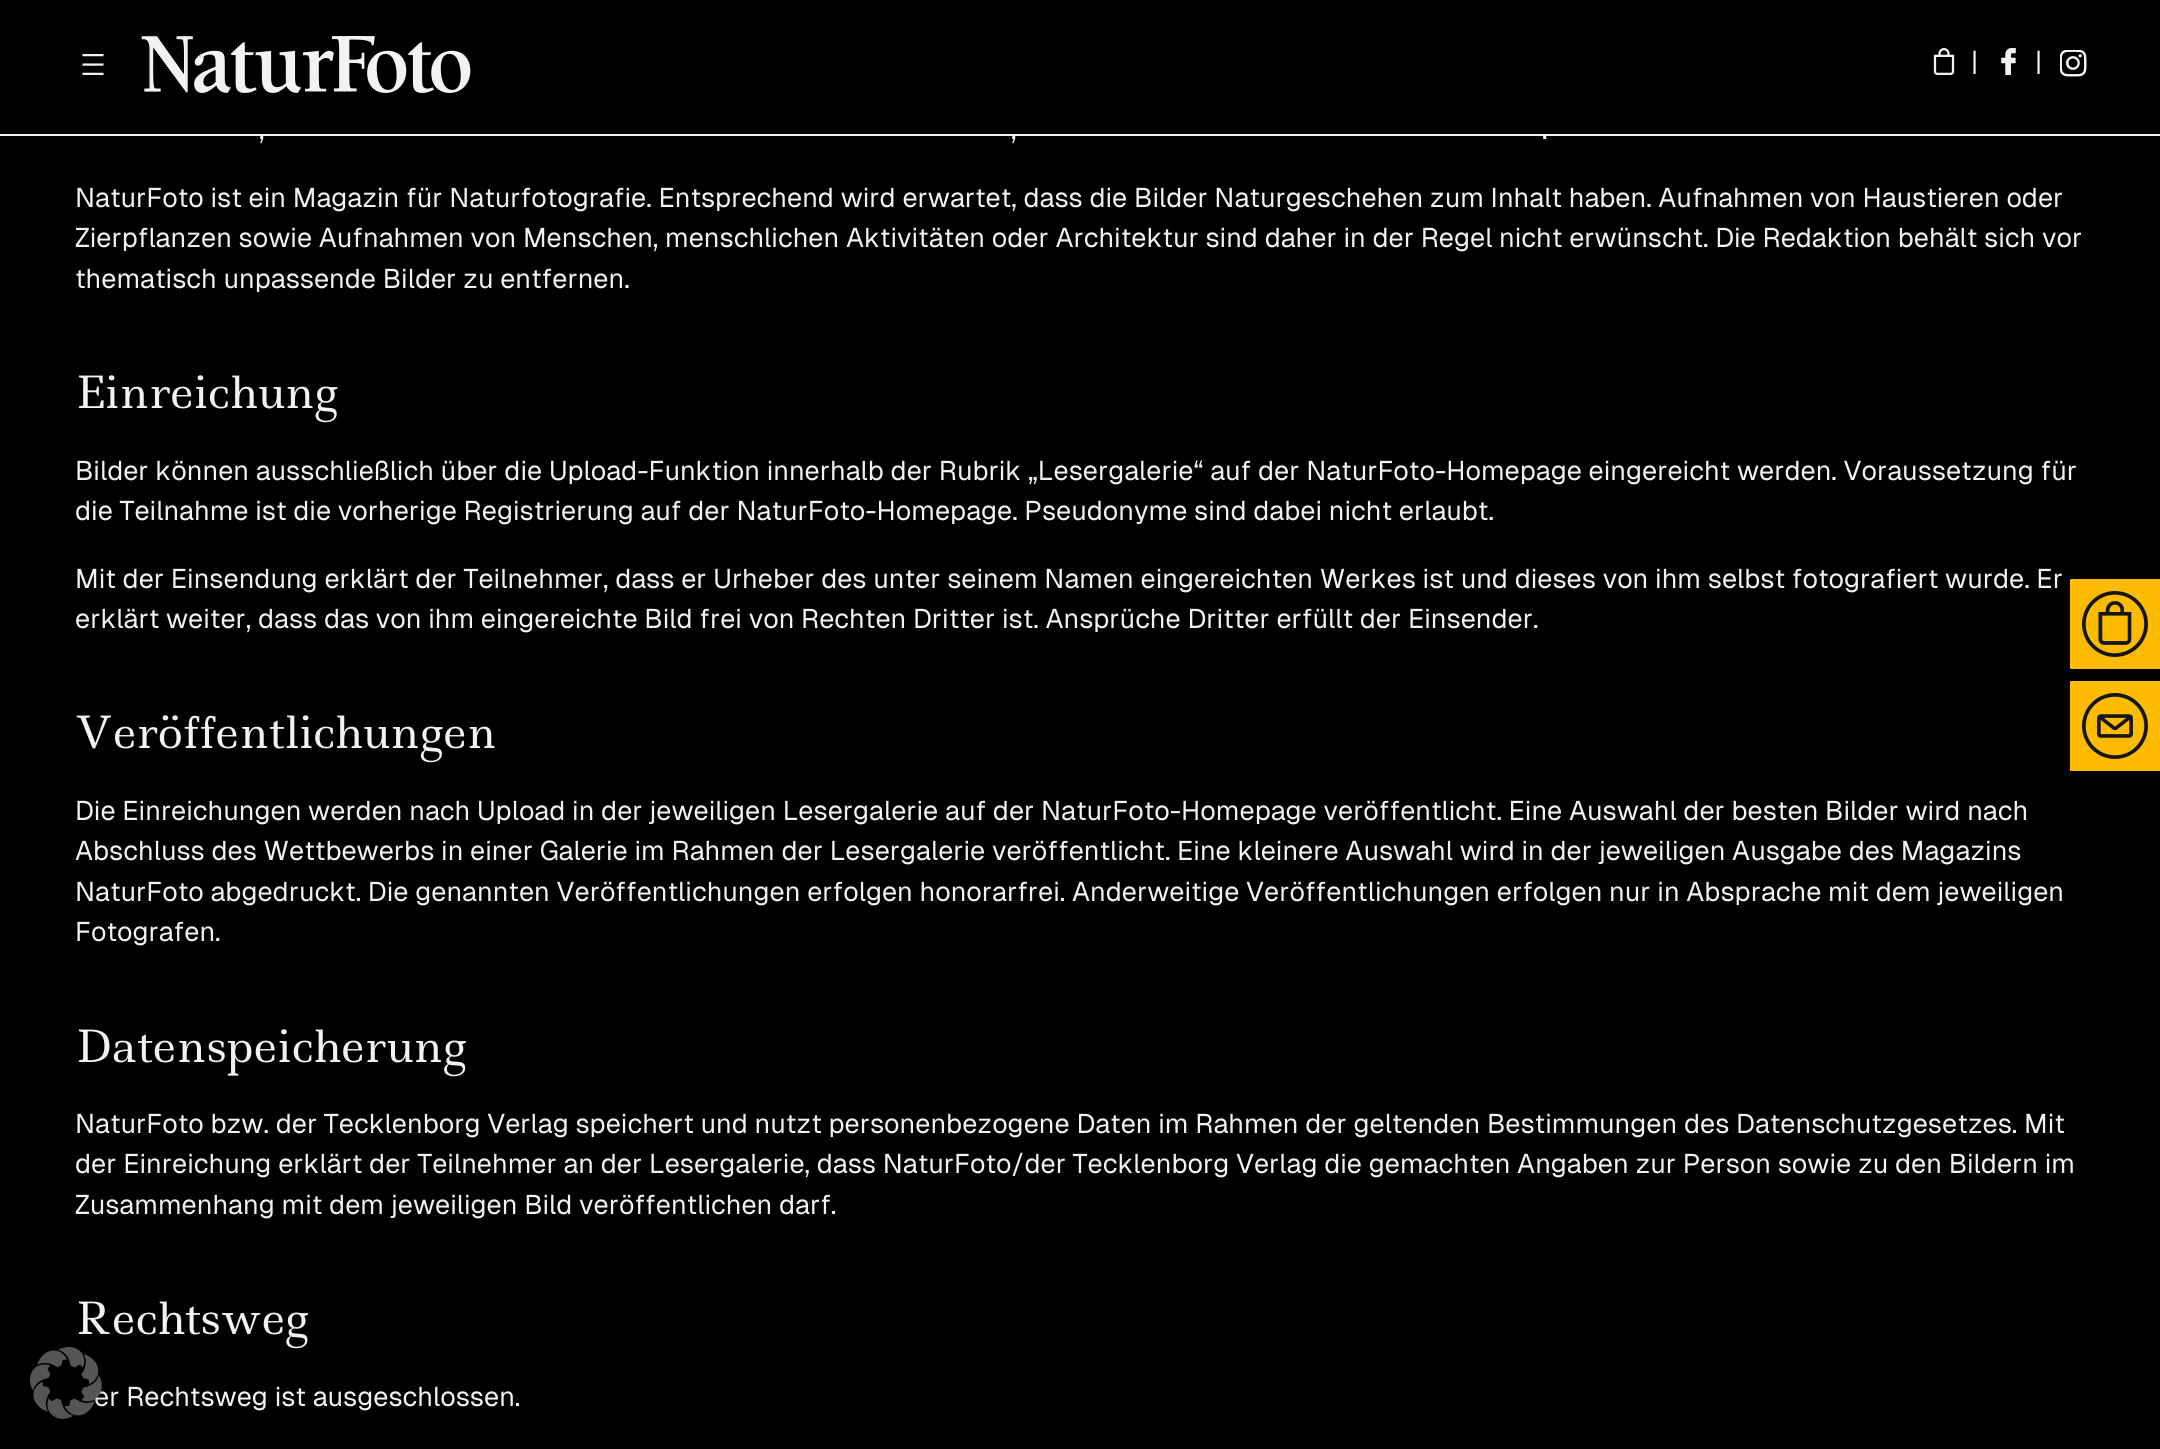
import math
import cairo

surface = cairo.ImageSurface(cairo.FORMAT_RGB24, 2160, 1449)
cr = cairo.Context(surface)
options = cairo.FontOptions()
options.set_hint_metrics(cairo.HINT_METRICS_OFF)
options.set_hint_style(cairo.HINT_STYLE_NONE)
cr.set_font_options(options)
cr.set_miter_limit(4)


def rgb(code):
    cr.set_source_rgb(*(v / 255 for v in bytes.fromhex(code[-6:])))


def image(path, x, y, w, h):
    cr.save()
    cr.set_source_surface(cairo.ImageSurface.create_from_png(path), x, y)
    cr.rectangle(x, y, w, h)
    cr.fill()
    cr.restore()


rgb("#000000")
cr.paint()
rgb("#f2f2f2")
cr.rectangle(0, 134, 2160, 2)
cr.fill()
image("img/1.png", 82, 54, 22, 21)
image("img/2.png", 141, 36, 330, 57)
image("img/3.png", 1933, 48, 22, 27)
image("img/4.png", 2001, 48, 15, 27)
image("img/5.png", 2060, 50, 27, 27)
rgb("#ffbb00")
cr.new_path()
cr.move_to(2071.5, 579)
cr.line_to(2160, 579)
cr.line_to(2160, 669)
cr.line_to(2071.5, 669)
cr.curve_to(2070.5, 669, 2070, 668.5, 2070, 667.5)
cr.line_to(2070, 580.5)
cr.curve_to(2070, 579.5, 2070.5, 579, 2071.5, 579)
cr.close_path()
cr.fill()
image("img/6.png", 2082, 591, 66, 66)
cr.new_path()
cr.move_to(2071.5, 681)
cr.line_to(2160, 681)
cr.line_to(2160, 771)
cr.line_to(2071.5, 771)
cr.curve_to(2070.5, 771, 2070, 770.5, 2070, 769.5)
cr.line_to(2070, 682.5)
cr.curve_to(2070, 681.5, 2070.5, 681, 2071.5, 681)
cr.close_path()
cr.fill()
image("img/7.png", 2082, 693, 66, 66)
cr.select_font_face("Geist")
cr.set_font_size(27)
rgb("#f2f2f2")
for x, y, s in [
    (1971, 71, "|"),
    (2035, 71, "|"),
    (259, 139, ","),
    (1011, 139, ","),
    (1542, 139, "."),
    (75, 207, "NaturFoto ist ein Magazin für Naturfotografie. Entsprechend wird erwartet, dass die Bilder Naturgeschehen zum Inhalt haben. Aufnahmen von Haustieren oder"),
    (75, 247, "Zierpflanzen sowie Aufnahmen von Menschen, menschlichen Aktivitäten oder Architektur sind daher in der Regel nicht erwünscht. Die Redaktion behält sich vor"),
    (75, 288, "thematisch unpassende Bilder zu entfernen."),
]:
    cr.move_to(x, y)
    cr.show_text(s)
cr.select_font_face("Ledger")
cr.set_font_size(43.25)
cr.move_to(75, 408)
cr.show_text("Einreichung")
cr.select_font_face("Geist")
cr.set_font_size(27)
for x, y, s in [
    (75, 480, "Bilder können ausschließlich über die Upload-Funktion innerhalb der Rubrik „Lesergalerie“ auf der NaturFoto-Homepage eingereicht werden. Voraussetzung für"),
    (75, 520, "die Teilnahme ist die vorherige Registrierung auf der NaturFoto-Homepage. Pseudonyme sind dabei nicht erlaubt."),
    (75, 588, "Mit der Einsendung erklärt der Teilnehmer, dass er Urheber des unter seinem Namen eingereichten Werkes ist und dieses von ihm selbst fotografiert wurde. Er"),
    (75, 628, "erklärt weiter, dass das von ihm eingereichte Bild frei von Rechten Dritter ist. Ansprüche Dritter erfüllt der Einsender."),
]:
    cr.move_to(x, y)
    cr.show_text(s)
cr.select_font_face("Ledger")
cr.set_font_size(43.25)
cr.move_to(75, 748)
cr.show_text("Veröffentlichungen")
cr.select_font_face("Geist")
cr.set_font_size(27)
for x, y, s in [
    (75, 820, "Die Einreichungen werden nach Upload in der jeweiligen Lesergalerie auf der NaturFoto-Homepage veröffentlicht. Eine Auswahl der besten Bilder wird nach"),
    (75, 860, "Abschluss des Wettbewerbs in einer Galerie im Rahmen der Lesergalerie veröffentlicht. Eine kleinere Auswahl wird in der jeweiligen Ausgabe des Magazins"),
    (75, 901, "NaturFoto abgedruckt. Die genannten Veröffentlichungen erfolgen honorarfrei. Anderweitige Veröffentlichungen erfolgen nur in Absprache mit dem jeweiligen"),
    (75, 941, "Fotografen."),
]:
    cr.move_to(x, y)
    cr.show_text(s)
cr.select_font_face("Ledger")
cr.set_font_size(43.25)
cr.move_to(75, 1062)
cr.show_text("Datenspeicherung")
cr.select_font_face("Geist")
cr.set_font_size(27)
for x, y, s in [
    (75, 1133, "NaturFoto bzw. der Tecklenborg Verlag speichert und nutzt personenbezogene Daten im Rahmen der geltenden Bestimmungen des Datenschutzgesetzes. Mit"),
    (75, 1173, "der Einreichung erklärt der Teilnehmer an der Lesergalerie, dass NaturFoto/der Tecklenborg Verlag die gemachten Angaben zur Person sowie zu den Bildern im"),
    (75, 1214, "Zusammenhang mit dem jeweiligen Bild veröffentlichen darf."),
]:
    cr.move_to(x, y)
    cr.show_text(s)
cr.select_font_face("Ledger")
cr.set_font_size(43.25)
cr.move_to(75, 1334)
cr.show_text("Rechtsweg")
cr.select_font_face("Geist")
cr.set_font_size(27)
cr.move_to(94, 1406)
cr.show_text("er Rechtsweg ist ausgeschlossen.")
image("img/8.png", 30, 1347, 77, 72)
surface.write_to_png("page.png")
